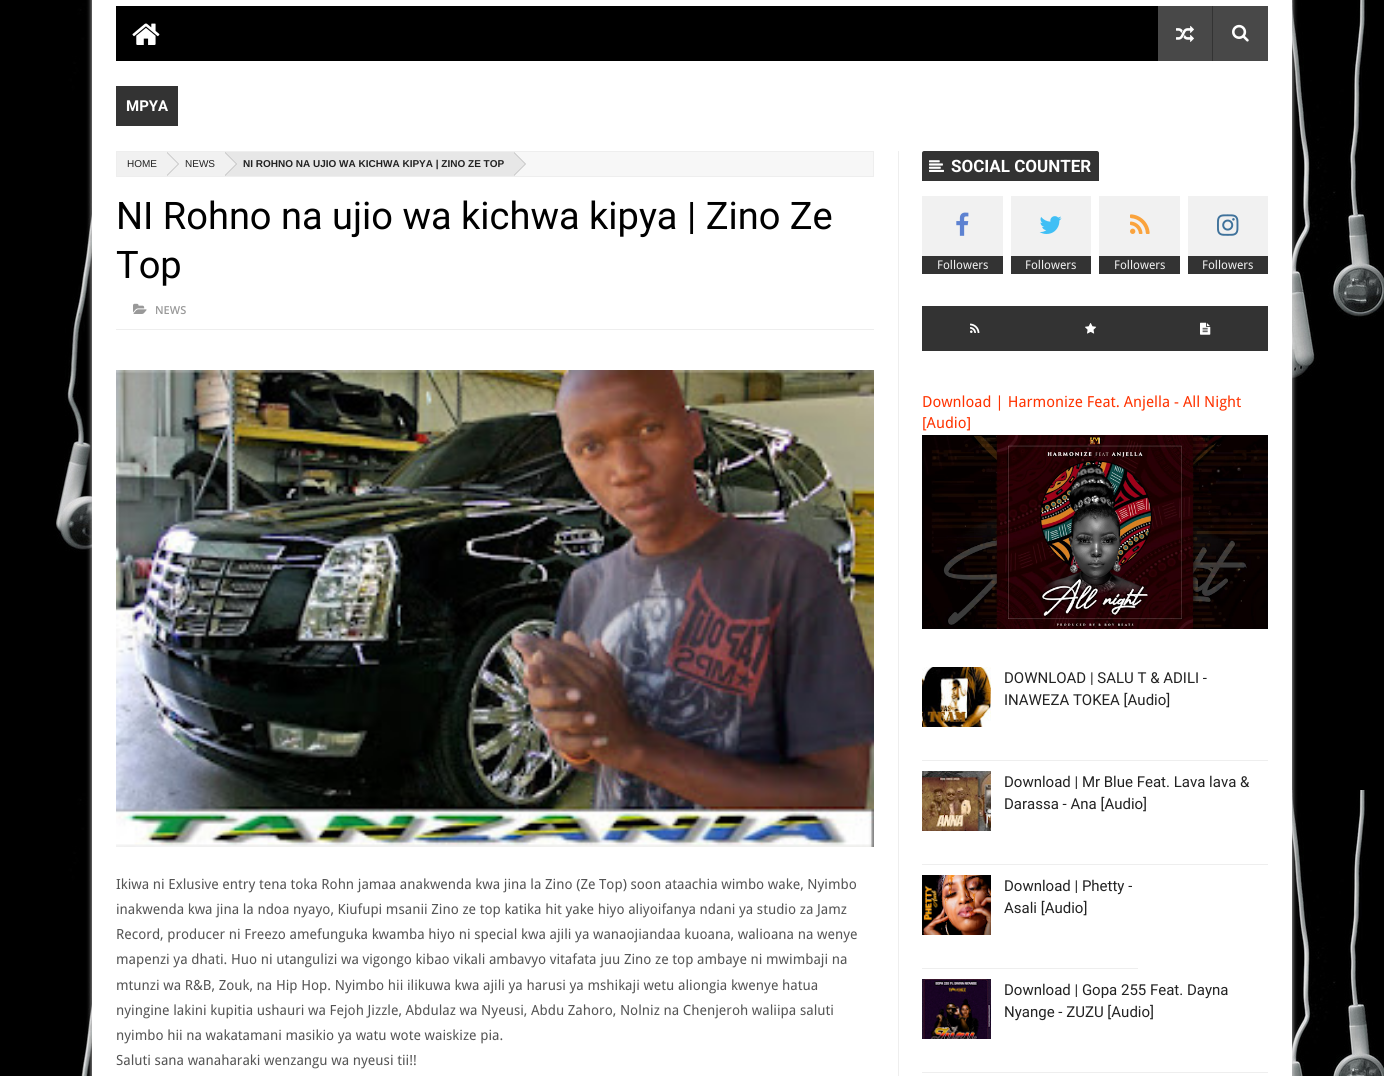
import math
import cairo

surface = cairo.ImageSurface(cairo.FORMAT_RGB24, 1384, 1076)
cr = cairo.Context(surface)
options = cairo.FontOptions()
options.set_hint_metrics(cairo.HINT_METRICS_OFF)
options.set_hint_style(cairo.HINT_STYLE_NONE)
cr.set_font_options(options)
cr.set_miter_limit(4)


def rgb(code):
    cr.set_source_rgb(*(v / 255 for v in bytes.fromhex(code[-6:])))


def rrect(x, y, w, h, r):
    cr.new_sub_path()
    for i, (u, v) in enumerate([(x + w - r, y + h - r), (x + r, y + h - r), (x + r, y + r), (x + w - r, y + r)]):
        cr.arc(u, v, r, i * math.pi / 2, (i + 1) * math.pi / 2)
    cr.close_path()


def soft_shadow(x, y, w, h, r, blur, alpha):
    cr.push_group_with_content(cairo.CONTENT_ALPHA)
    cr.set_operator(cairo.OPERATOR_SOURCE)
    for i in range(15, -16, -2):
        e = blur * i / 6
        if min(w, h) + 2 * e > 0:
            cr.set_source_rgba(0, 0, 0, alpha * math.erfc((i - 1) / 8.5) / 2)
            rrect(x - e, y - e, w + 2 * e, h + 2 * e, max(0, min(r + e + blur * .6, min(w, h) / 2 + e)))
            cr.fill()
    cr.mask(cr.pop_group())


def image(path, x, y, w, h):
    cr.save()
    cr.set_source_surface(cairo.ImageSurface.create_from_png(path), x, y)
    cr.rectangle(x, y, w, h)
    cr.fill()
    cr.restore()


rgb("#ffffff")
cr.paint()
image("img/1.png", 0, 0, 1384, 1076)
rgb("#cccccc")
soft_shadow(92, -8, 1200, 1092, 0, 2.5, 1)
rgb("#ffffff")
cr.rectangle(92, 0, 1200, 1076)
cr.fill()
rgb("#000000")
cr.rectangle(116, 6, 1042, 55)
cr.fill()
image("img/2.png", 132, 23, 28, 22)
rgb("#484848")
cr.rectangle(1158, 6, 54, 55)
cr.fill()
rgb("#333333")
cr.rectangle(1212, 6, 1, 55)
cr.fill()
image("img/3.png", 1176, 25, 18, 17)
rgb("#484848")
cr.rectangle(1213, 6, 55, 55)
cr.fill()
image("img/4.png", 1232, 24, 17, 18)
for x, y, w, h, color in [
    (116, 86, 62, 40, "#333333"),
    (898, 151, 1, 925, "#eeeeee"),
    (514, 152, 359, 24, "#f7f7f7"),
]:
    rgb(color)
    cr.rectangle(x, y, w, h)
    cr.fill()
cr.rectangle(116.5, 151.5, 757, 25)
rgb("#eeeeee")
cr.set_line_width(1)
cr.stroke()
rgb("#f1f1f1")
cr.rectangle(117, 152, 108, 24)
cr.fill()
rgb("#bbbbbb")
cr.new_path()
cr.move_to(167, 176)
cr.line_to(167, 152)
cr.line_to(179, 164)
cr.close_path()
cr.fill()
rgb("#f1f1f1")
cr.new_path()
cr.move_to(166, 176)
cr.line_to(166, 152)
cr.line_to(178, 164)
cr.close_path()
cr.fill()
rgb("#e7e7e7")
cr.rectangle(225, 152, 289, 24)
cr.fill()
rgb("#bbbbbb")
cr.new_path()
cr.move_to(225, 176)
cr.line_to(225, 152)
cr.line_to(237, 164)
cr.close_path()
cr.fill()
rgb("#f1f1f1")
cr.new_path()
cr.move_to(224, 176)
cr.line_to(224, 152)
cr.line_to(236, 164)
cr.close_path()
cr.fill()
rgb("#bbbbbb")
cr.new_path()
cr.move_to(514, 176)
cr.line_to(514, 152)
cr.line_to(526, 164)
cr.close_path()
cr.fill()
rgb("#e7e7e7")
cr.new_path()
cr.move_to(513, 176)
cr.line_to(513, 152)
cr.line_to(525, 164)
cr.close_path()
cr.fill()
rgb("#eeeeee")
cr.rectangle(116, 329, 758, 1)
cr.fill()
image("img/5.png", 133, 303, 14, 11)
image("img/6.png", 116, 370, 758, 477)
rgb("#333333")
cr.new_path()
cr.move_to(924, 151)
cr.line_to(1097, 151)
cr.curve_to(1098, 151, 1099, 152, 1099, 153)
cr.line_to(1099, 181)
cr.line_to(922, 181)
cr.line_to(922, 153)
cr.curve_to(922, 152, 923, 151, 924, 151)
cr.close_path()
cr.fill()
image("img/7.png", 929, 160, 15, 12)
rgb("#f1f1f1")
cr.rectangle(922, 196, 81, 60)
cr.fill()
image("img/8.png", 956, 212, 13, 24)
rgb("#333333")
cr.rectangle(922, 256, 81, 18)
cr.fill()
rgb("#f1f1f1")
cr.rectangle(1011, 196, 80, 60)
cr.fill()
image("img/9.png", 1039, 216, 23, 18)
rgb("#333333")
cr.rectangle(1011, 256, 80, 18)
cr.fill()
rgb("#f1f1f1")
cr.rectangle(1099, 196, 81, 60)
cr.fill()
image("img/10.png", 1130, 214, 20, 20)
rgb("#333333")
cr.rectangle(1099, 256, 81, 18)
cr.fill()
rgb("#f1f1f1")
cr.rectangle(1188, 196, 80, 60)
cr.fill()
image("img/11.png", 1217, 214, 22, 22)
rgb("#333333")
cr.rectangle(1188, 256, 80, 18)
cr.fill()
cr.rectangle(922, 306, 346, 45)
cr.fill()
image("img/12.png", 970, 323, 10, 10)
image("img/13.png", 1085, 323, 12, 11)
image("img/14.png", 1200, 322, 11, 13)
image("img/15.png", 922, 435, 346, 194)
rgb("#eeeeee")
cr.rectangle(922, 760, 346, 1)
cr.fill()
image("img/16.png", 922, 667, 69, 60)
cr.rectangle(922, 864, 346, 1)
cr.fill()
image("img/17.png", 922, 771, 69, 60)
cr.rectangle(922, 968, 216, 1)
cr.fill()
image("img/18.png", 922, 875, 69, 60)
cr.rectangle(922, 1072, 346, 1)
cr.fill()
image("img/19.png", 922, 979, 69, 60)
cr.select_font_face("Roboto", cairo.FONT_SLANT_NORMAL, cairo.FONT_WEIGHT_BOLD)
cr.set_font_size(15)
rgb("#ffffff")
cr.move_to(126, 111)
cr.show_text("MPYA")
cr.select_font_face("Liberation Sans")
cr.set_font_size(10)
rgb("#222222")
cr.move_to(127, 167)
cr.show_text("HOME")
cr.move_to(185, 167)
cr.show_text("NEWS")
cr.select_font_face("Liberation Sans", cairo.FONT_SLANT_NORMAL, cairo.FONT_WEIGHT_BOLD)
cr.move_to(243, 167)
cr.show_text("NI ROHNO NA UJIO WA KICHWA KIPYA | ZINO ZE TOP")
cr.select_font_face("Roboto")
cr.set_font_size(38)
rgb("#000000")
cr.move_to(116, 229)
cr.show_text("NI Rohno na ujio wa kichwa kipya | Zino Ze")
cr.move_to(116, 278)
cr.show_text("Top")
cr.select_font_face("Open Sans SemiBold")
cr.set_font_size(11)
rgb("#999999")
cr.move_to(155, 314)
cr.show_text("NEWS")
cr.select_font_face("Droid Sans")
cr.set_font_size(14)
rgb("#555555")
for x, y, s in [
    (116, 889, "Ikiwa ni Exlusive entry tena toka Rohn jamaa anakwenda kwa jina la Zino (Ze Top) soon ataachia wimbo wake, Nyimbo"),
    (116, 914, "inakwenda kwa jina la ndoa nyayo, Kiufupi msanii Zino ze top katika hit yake hiyo aliyoifanya ndani ya studio za Jamz"),
    (116, 939, "Record, producer ni Freezo amefunguka kwamba hiyo ni special kwa ajili ya wanaojiandaa kuoana, walioana na wenye"),
    (116, 964, "mapenzi ya dhati. Huo ni utangulizi wa vigongo kibao vikali ambavyo vitafata juu Zino ze top ambaye ni mwimbaji na"),
    (116, 990, "mtunzi wa R&B, Zouk, na Hip Hop. Nyimbo hii ilikuwa kwa ajili ya harusi ya mshikaji wetu aliongia kwenye hatua"),
    (116, 1015, "nyingine lakini kupitia ushauri wa Fejoh Jizzle, Abdulaz wa Nyeusi, Abdu Zahoro, Nolniz na Chenjeroh waliipa saluti"),
    (116, 1040, "nyimbo hii na wakatamani masikio ya watu wote waiskize pia."),
    (116, 1065, "Saluti sana wanaharaki wenzangu wa nyeusi tii!!"),
]:
    cr.move_to(x, y)
    cr.show_text(s)
cr.select_font_face("Roboto", cairo.FONT_SLANT_NORMAL, cairo.FONT_WEIGHT_BOLD)
cr.set_font_size(17)
rgb("#ffffff")
cr.move_to(951, 172)
cr.show_text("SOCIAL COUNTER")
cr.select_font_face("Droid Sans")
cr.set_font_size(12)
rgb("#f1f1f1")
for x, y, s in [
    (937, 269, "Followers"),
    (1025, 269, "Followers"),
    (1114, 269, "Followers"),
    (1202, 269, "Followers"),
]:
    cr.move_to(x, y)
    cr.show_text(s)
cr.set_font_size(15.25)
rgb("#ff3300")
cr.move_to(922, 407)
cr.show_text("Download | Harmonize Feat. Anjella - All Night")
cr.move_to(922, 428)
cr.show_text("[Audio]")
cr.select_font_face("Roboto")
cr.set_font_size(15)
rgb("#222222")
for x, y, s in [
    (1004, 683, "DOWNLOAD | SALU T & ADILI -"),
    (1004, 705, "INAWEZA TOKEA [Audio]"),
    (1004, 787, "Download | Mr Blue Feat. Lava lava &"),
    (1004, 809, "Darassa - Ana [Audio]"),
    (1004, 891, "Download | Phetty -"),
    (1004, 913, "Asali [Audio]"),
    (1004, 995, "Download | Gopa 255 Feat. Dayna"),
    (1004, 1017, "Nyange - ZUZU [Audio]"),
]:
    cr.move_to(x, y)
    cr.show_text(s)
surface.write_to_png("page.png")
